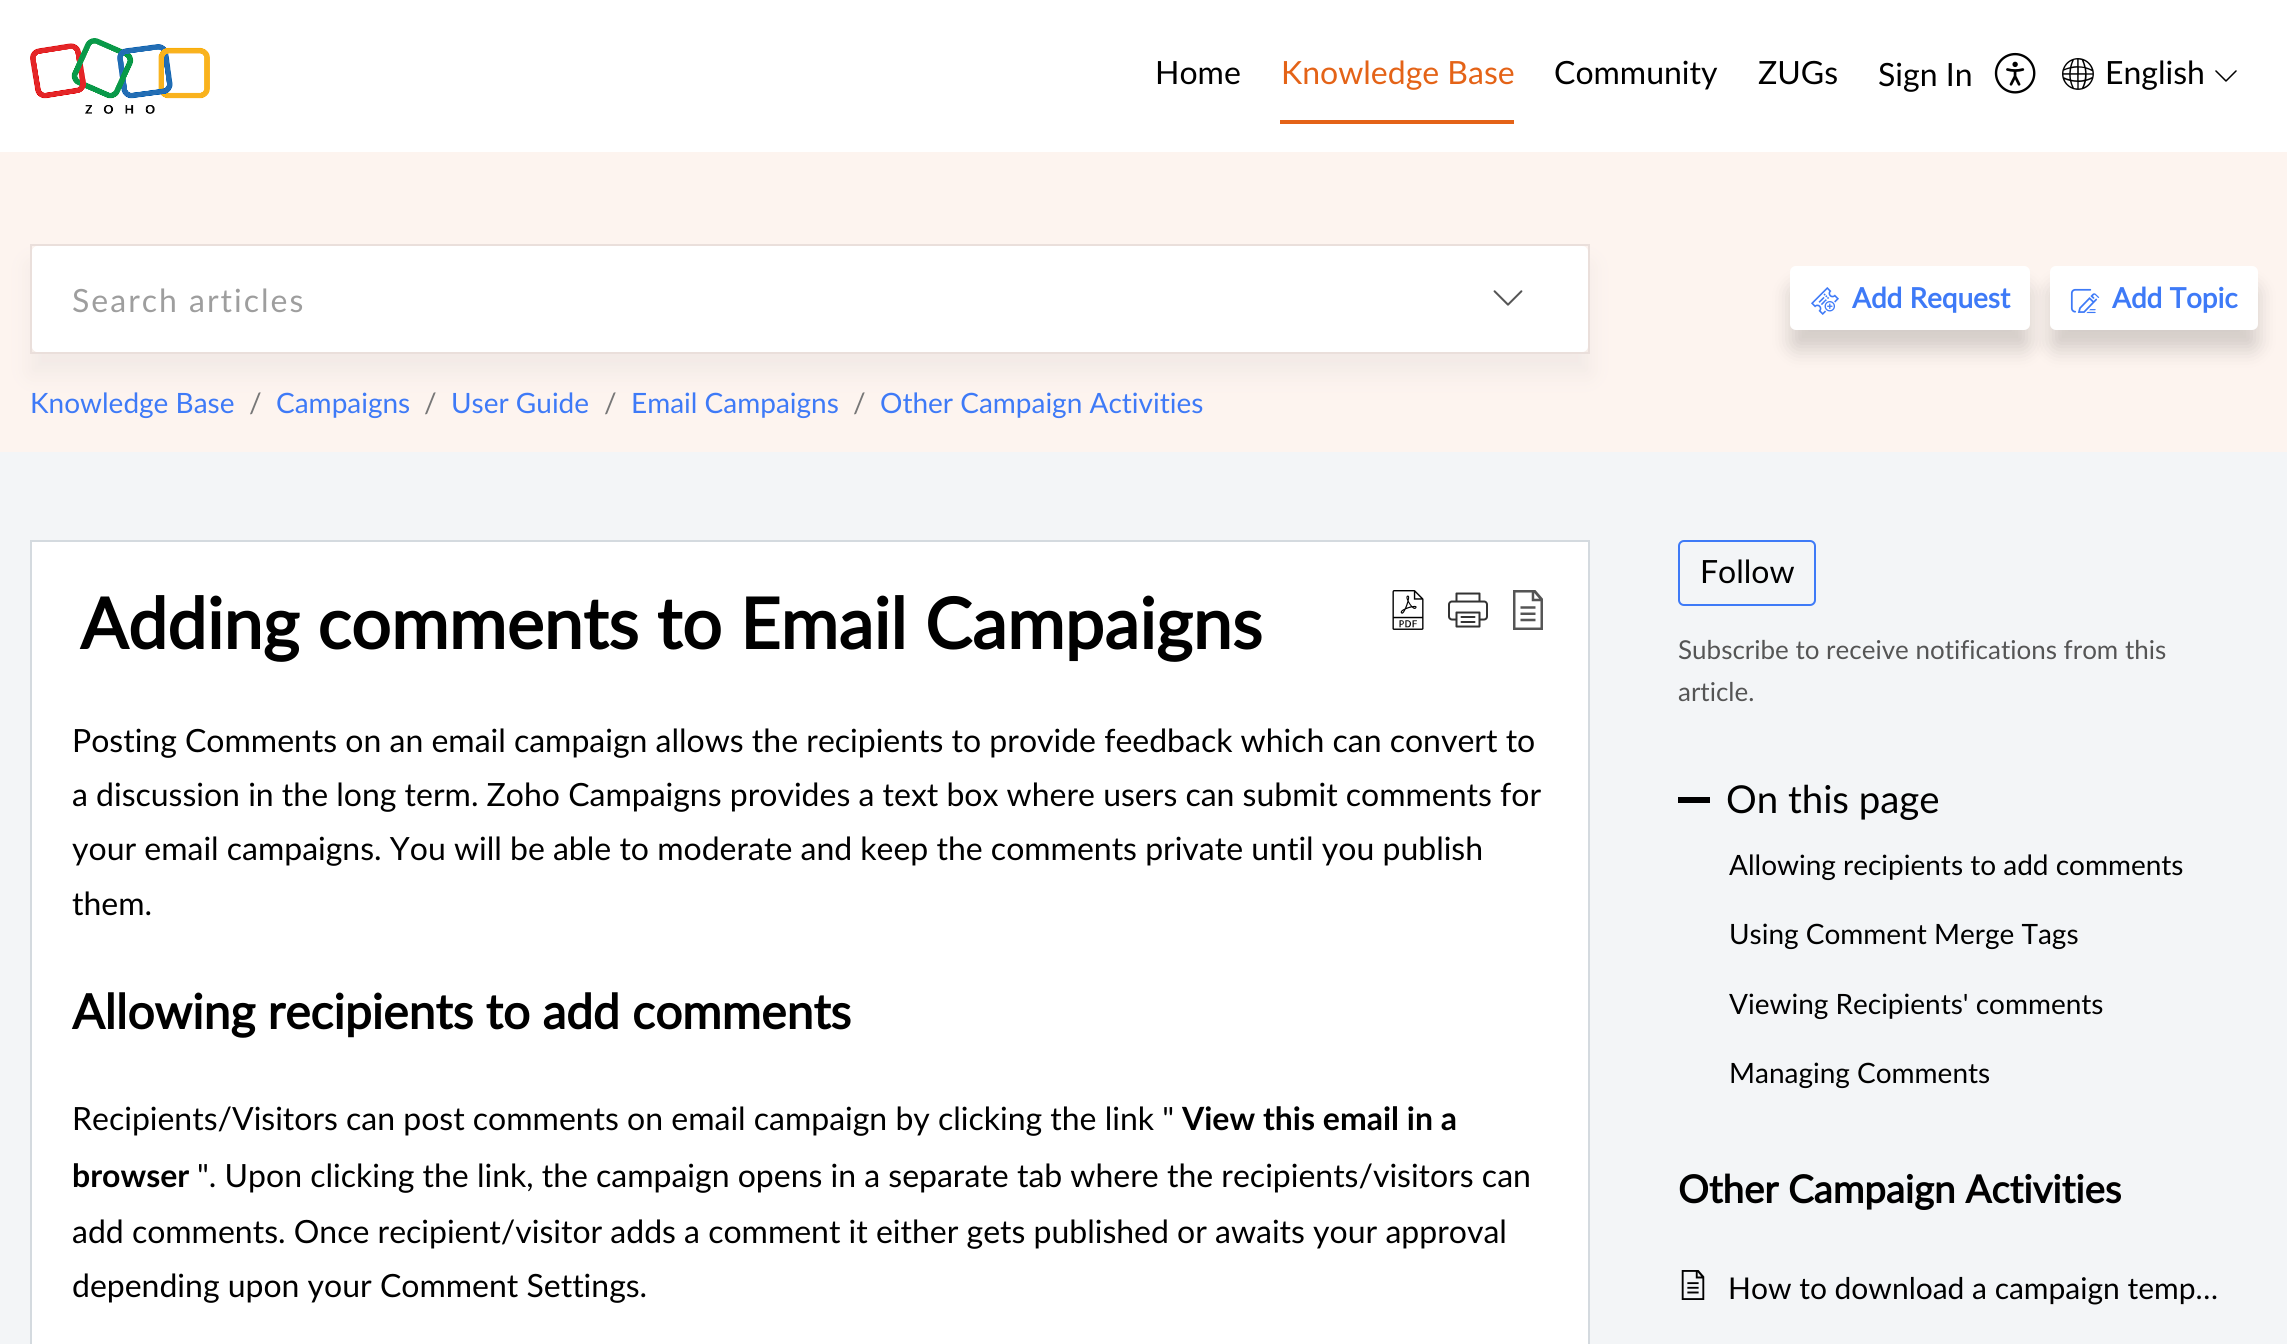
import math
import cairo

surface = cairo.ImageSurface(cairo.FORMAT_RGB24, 2287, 1344)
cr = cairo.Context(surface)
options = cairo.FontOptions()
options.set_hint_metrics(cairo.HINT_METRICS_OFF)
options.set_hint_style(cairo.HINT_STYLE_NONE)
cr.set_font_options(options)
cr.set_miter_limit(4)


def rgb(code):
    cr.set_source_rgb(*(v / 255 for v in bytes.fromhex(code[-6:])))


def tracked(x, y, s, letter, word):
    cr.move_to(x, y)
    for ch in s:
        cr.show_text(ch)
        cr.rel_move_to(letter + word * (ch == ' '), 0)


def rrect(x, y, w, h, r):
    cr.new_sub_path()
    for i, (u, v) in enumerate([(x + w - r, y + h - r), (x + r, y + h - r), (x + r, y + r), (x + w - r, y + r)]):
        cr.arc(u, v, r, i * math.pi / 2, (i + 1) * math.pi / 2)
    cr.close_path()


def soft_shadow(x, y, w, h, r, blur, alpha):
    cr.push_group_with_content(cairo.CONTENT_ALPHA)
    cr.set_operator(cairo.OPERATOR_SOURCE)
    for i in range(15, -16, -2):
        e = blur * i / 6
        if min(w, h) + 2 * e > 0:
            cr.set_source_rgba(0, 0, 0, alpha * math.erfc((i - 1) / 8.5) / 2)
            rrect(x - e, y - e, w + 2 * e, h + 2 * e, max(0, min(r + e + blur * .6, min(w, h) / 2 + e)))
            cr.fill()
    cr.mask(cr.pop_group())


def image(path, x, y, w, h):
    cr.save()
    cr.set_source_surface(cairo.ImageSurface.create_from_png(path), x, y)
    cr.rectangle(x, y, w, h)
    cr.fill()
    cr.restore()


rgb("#f3f5f7")
cr.paint()
rgb("#ffffff")
cr.rectangle(0, 0, 2287, 152)
cr.fill()
image("img/1.png", 30, 38, 180, 76)
rgb("#e46317")
cr.rectangle(1280, 120, 234, 4)
cr.fill()
image("img/2.png", 1994, 52, 42, 42)
image("img/3.png", 2062, 58, 32, 32)
image("img/4.png", 2215, 70, 22, 12)
rgb("#fdf4ef")
cr.rectangle(0, 152, 2287, 300)
cr.fill()
rgb("#f0e8e5")
soft_shadow(30, 264, 1560, 110, 0, 10, 0.84)
cr.rectangle(31, 245, 1558, 108)
rgb("#eadfdb")
cr.stroke()
rgb("#ffffff")
rrect(32, 246, 1556, 106, 6)
cr.fill()
rrect(32, 246, 1396, 106, 6)
cr.fill()
cr.set_source_rgba(1, 1, 1, 0.5)
cr.new_path()
cr.move_to(1428, 246)
cr.line_to(1582, 246)
cr.curve_to(1585.5, 246, 1588, 248.5, 1588, 252)
cr.line_to(1588, 346)
cr.curve_to(1588, 349.5, 1585.5, 352, 1582, 352)
cr.line_to(1428, 352)
cr.close_path()
cr.fill()
image("img/5.png", 1493, 290, 30, 16)
rgb("#000000")
soft_shadow(1790, 286, 240, 64, 6, 10, 0.16)
rgb("#ffffff")
rrect(1790, 266, 240, 64, 6)
cr.fill()
image("img/6.png", 1811, 287, 28, 28)
rgb("#000000")
soft_shadow(2050, 286, 208, 64, 6, 10, 0.16)
rgb("#ffffff")
rrect(2050, 266, 208, 64, 6)
cr.fill()
image("img/7.png", 2070, 288, 30, 26)
cr.rectangle(31, 541, 1558, 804)
cr.fill_preserve()
rgb("#d4dadf")
cr.stroke()
image("img/8.png", 1392, 590, 32, 40)
image("img/9.png", 1448, 592, 40, 36)
image("img/10.png", 1513, 590, 30, 40)
rrect(1679, 541, 136, 64, 5)
rgb("#3e7af7")
cr.stroke()
rgb("#000000")
cr.rectangle(1678, 797, 32, 6)
cr.fill()
image("img/11.png", 1681, 1270, 24, 30)
cr.select_font_face("Lato")
cr.set_font_size(32)
cr.move_to(1155, 84)
cr.show_text("Home")
rgb("#e46317")
cr.move_to(1281, 84)
cr.show_text("Knowledge Base")
rgb("#000000")
for x, y, s in [
    (1554, 84, "Community"),
    (1758, 84, "ZUGs"),
    (1878, 86, "Sign In"),
    (2105, 84, "English"),
]:
    cr.move_to(x, y)
    cr.show_text(s)
rgb("#9e9e9e")
tracked(72, 312, "Search articles", 2, 0)
cr.select_font_face("Lato", cairo.FONT_SLANT_NORMAL, cairo.FONT_WEIGHT_BOLD)
cr.set_font_size(28)
rgb("#3e7af7")
cr.move_to(1852, 308)
cr.show_text("Add Request")
cr.move_to(2112, 308)
cr.show_text("Add Topic")
cr.select_font_face("Lato")
cr.move_to(30, 413)
cr.show_text("Knowledge Base")
rgb("#777777")
cr.move_to(249, 413)
cr.show_text("/")
rgb("#3e7af7")
cr.move_to(276, 413)
cr.show_text("Campaigns")
rgb("#777777")
cr.move_to(424, 413)
cr.show_text("/")
rgb("#3e7af7")
cr.move_to(451, 413)
cr.show_text("User Guide")
rgb("#777777")
cr.move_to(604, 413)
cr.show_text("/")
rgb("#3e7af7")
cr.move_to(631, 413)
cr.show_text("Email Campaigns")
rgb("#777777")
cr.move_to(853, 413)
cr.show_text("/")
rgb("#3e7af7")
cr.move_to(880, 413)
cr.show_text("Other Campaign Activities")
cr.select_font_face("Lato", cairo.FONT_SLANT_NORMAL, cairo.FONT_WEIGHT_BOLD)
cr.set_font_size(70.4)
rgb("#000000")
cr.move_to(80, 649)
cr.show_text("Adding comments to Email Campaigns")
cr.select_font_face("Lato")
cr.set_font_size(32)
for x, y, s in [
    (72, 752, "Posting Comments on an email campaign allows the recipients to provide feedback which can convert to"),
    (72, 806, "a discussion in the long term. Zoho Campaigns provides a text box where users can submit comments for"),
    (72, 860, "your email campaigns. You will be able to moderate and keep the comments private until you publish"),
    (72, 915, "them."),
]:
    cr.move_to(x, y)
    cr.show_text(s)
cr.select_font_face("Lato", cairo.FONT_SLANT_NORMAL, cairo.FONT_WEIGHT_BOLD)
cr.set_font_size(48)
cr.move_to(72, 1029)
cr.show_text("Allowing recipients to add comments")
cr.select_font_face("Lato")
cr.set_font_size(32)
cr.move_to(72, 1130)
cr.show_text("Recipients/Visitors can post comments on email campaign by clicking the link \"")
cr.select_font_face("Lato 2", cairo.FONT_SLANT_NORMAL, cairo.FONT_WEIGHT_BOLD)
cr.move_to(1182, 1130)
cr.show_text("View this email in a")
cr.move_to(72, 1187)
cr.show_text("browser")
cr.select_font_face("Lato")
for x, y, s in [
    (197, 1187, "\". Upon clicking the link, the campaign opens in a separate tab where the recipients/visitors can"),
    (72, 1243, "add comments. Once recipient/visitor adds a comment it either gets published or awaits your approval"),
    (72, 1297, "depending upon your Comment Settings."),
    (1700, 583, "Follow"),
]:
    cr.move_to(x, y)
    cr.show_text(s)
cr.set_font_size(26)
rgb("#555555")
cr.move_to(1678, 659)
cr.show_text("Subscribe to receive notifications from this")
cr.move_to(1678, 701)
cr.show_text("article.")
cr.set_font_size(38.4)
rgb("#000000")
cr.move_to(1726, 813)
cr.show_text("On this page")
cr.set_font_size(28)
for x, y, s in [
    (1729, 875, "Allowing recipients to add comments"),
    (1729, 944, "Using Comment Merge Tags"),
    (1729, 1014, "Viewing Recipients' comments"),
    (1729, 1083, "Managing Comments"),
]:
    cr.move_to(x, y)
    cr.show_text(s)
cr.select_font_face("Lato", cairo.FONT_SLANT_NORMAL, cairo.FONT_WEIGHT_BOLD)
cr.set_font_size(38.4)
cr.move_to(1678, 1203)
cr.show_text("Other Campaign Activities")
cr.select_font_face("Lato")
cr.set_font_size(30)
cr.move_to(1728, 1299)
cr.show_text("How to download a campaign temp…")
surface.write_to_png("page.png")
